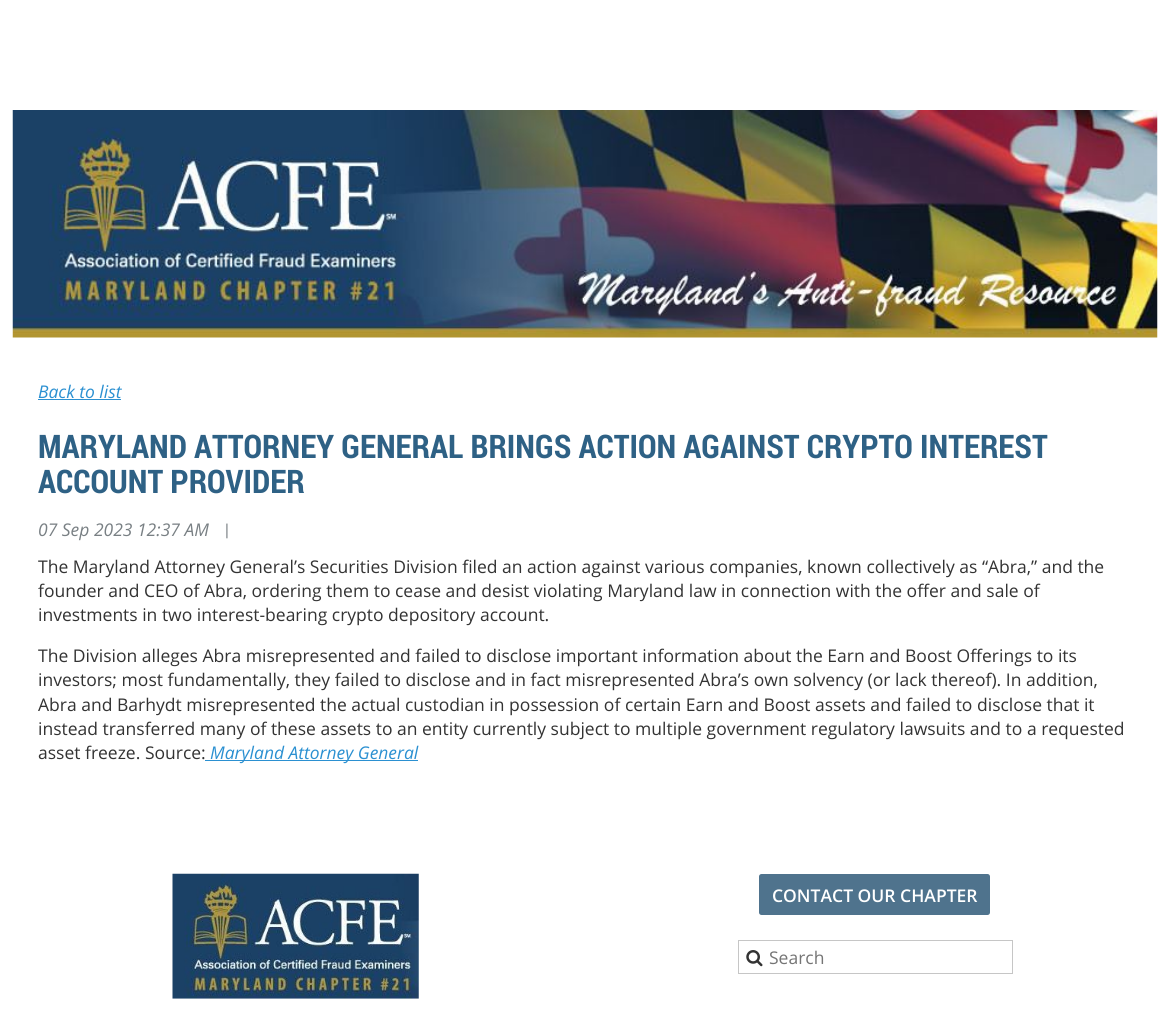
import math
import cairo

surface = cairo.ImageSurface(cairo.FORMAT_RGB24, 1169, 1015)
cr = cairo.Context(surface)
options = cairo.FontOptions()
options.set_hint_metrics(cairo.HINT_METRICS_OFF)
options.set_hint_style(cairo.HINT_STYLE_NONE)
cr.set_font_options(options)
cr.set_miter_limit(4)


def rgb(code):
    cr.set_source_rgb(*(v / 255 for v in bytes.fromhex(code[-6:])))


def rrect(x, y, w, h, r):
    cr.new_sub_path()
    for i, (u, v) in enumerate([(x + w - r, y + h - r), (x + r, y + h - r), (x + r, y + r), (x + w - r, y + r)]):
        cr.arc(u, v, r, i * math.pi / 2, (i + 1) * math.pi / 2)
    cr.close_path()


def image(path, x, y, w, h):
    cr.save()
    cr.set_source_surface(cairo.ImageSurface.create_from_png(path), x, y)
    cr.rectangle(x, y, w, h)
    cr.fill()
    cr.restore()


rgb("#ffffff")
cr.paint()
image("img/1.png", 12, 110, 1146, 228)
rgb("#2b90d1")
cr.rectangle(38, 399, 83, 1)
cr.fill()
cr.rectangle(205, 760, 213, 1)
cr.fill()
image("img/2.png", 172, 873, 247, 126)
rgb("#4f738d")
rrect(759, 874, 231, 41, 2.5)
cr.fill()
cr.rectangle(738.5, 940.5, 274, 33)
rgb("#c6c6c6")
cr.set_line_width(1)
cr.stroke()
image("img/3.png", 746, 950, 17, 17)
cr.select_font_face("Open Sans", cairo.FONT_SLANT_ITALIC)
cr.set_font_size(17.5)
rgb("#2b90d1")
cr.move_to(38, 398)
cr.show_text("Back to list")
cr.select_font_face("Roboto Condensed", cairo.FONT_SLANT_NORMAL, cairo.FONT_WEIGHT_BOLD)
cr.set_font_size(32.5)
rgb("#2e6185")
cr.move_to(38, 458)
cr.show_text("MARYLAND ATTORNEY GENERAL BRINGS ACTION AGAINST CRYPTO INTEREST")
cr.move_to(38, 493)
cr.show_text("ACCOUNT PROVIDER")
cr.select_font_face("Open Sans", cairo.FONT_SLANT_ITALIC)
cr.set_font_size(17.5)
rgb("#798084")
cr.move_to(38, 536)
cr.show_text("07 Sep 2023 12:37 AM")
cr.select_font_face("Roboto Condensed")
cr.move_to(225, 536)
cr.show_text("|")
cr.select_font_face("Open Sans")
rgb("#333333")
for x, y, s in [
    (38, 573, "The Maryland Attorney General’s Securities Division filed an action against various companies, known collectively as “Abra,” and the"),
    (38, 597, "founder and CEO of Abra, ordering them to cease and desist violating Maryland law in connection with the offer and sale of"),
    (38, 621, "investments in two interest-bearing crypto depository account."),
    (38, 662, "The Division alleges Abra misrepresented and failed to disclose important information about the Earn and Boost Offerings to its"),
    (38, 686, "investors; most fundamentally, they failed to disclose and in fact misrepresented Abra’s own solvency (or lack thereof). In addition,"),
    (38, 711, "Abra and Barhydt misrepresented the actual custodian in possession of certain Earn and Boost assets and failed to disclose that it"),
    (38, 735, "instead transferred many of these assets to an entity currently subject to multiple government regulatory lawsuits and to a requested"),
    (38, 759, "asset freeze. Source:"),
]:
    cr.move_to(x, y)
    cr.show_text(s)
cr.select_font_face("Open Sans", cairo.FONT_SLANT_ITALIC)
rgb("#2b90d1")
cr.move_to(210, 759)
cr.show_text("Maryland Attorney General")
cr.select_font_face("Open Sans SemiBold")
rgb("#ffffff")
cr.move_to(772, 902)
cr.show_text("CONTACT OUR CHAPTER")
cr.select_font_face("Open Sans")
rgb("#757575")
cr.move_to(769, 964)
cr.show_text("Search")
surface.write_to_png("page.png")
